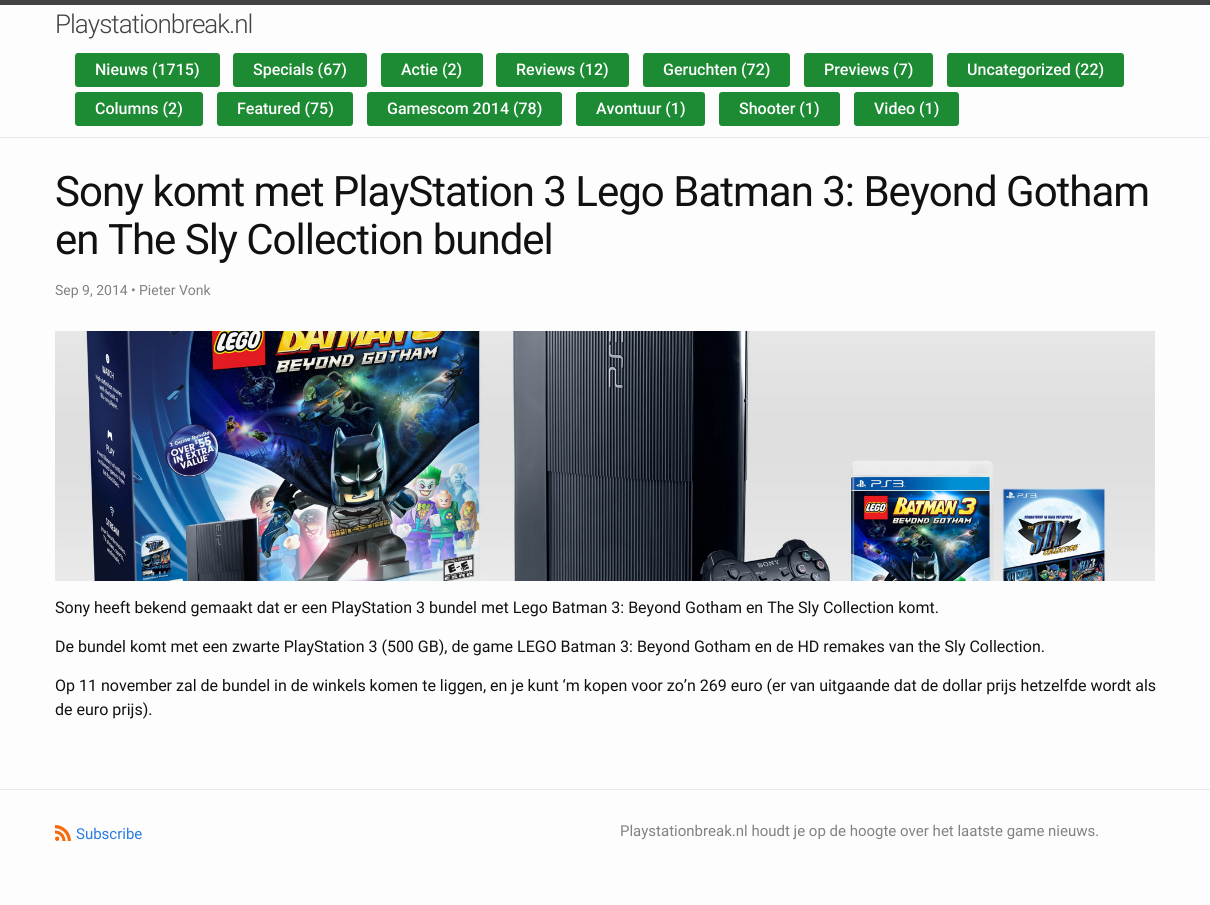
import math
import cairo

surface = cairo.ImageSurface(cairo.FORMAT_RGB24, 1210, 905)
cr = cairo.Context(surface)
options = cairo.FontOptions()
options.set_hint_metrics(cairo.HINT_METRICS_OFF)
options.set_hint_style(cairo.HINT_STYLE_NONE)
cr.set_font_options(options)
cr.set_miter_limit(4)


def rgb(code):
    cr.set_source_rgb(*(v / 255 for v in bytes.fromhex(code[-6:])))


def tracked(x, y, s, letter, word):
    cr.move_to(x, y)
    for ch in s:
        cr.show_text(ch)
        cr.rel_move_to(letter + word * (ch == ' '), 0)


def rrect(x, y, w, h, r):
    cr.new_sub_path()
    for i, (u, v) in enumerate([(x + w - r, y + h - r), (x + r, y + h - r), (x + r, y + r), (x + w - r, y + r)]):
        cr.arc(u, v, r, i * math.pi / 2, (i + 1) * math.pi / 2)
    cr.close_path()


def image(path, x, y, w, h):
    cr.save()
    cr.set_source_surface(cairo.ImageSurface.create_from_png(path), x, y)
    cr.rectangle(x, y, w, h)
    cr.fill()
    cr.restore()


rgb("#fdfdfd")
cr.paint()
rgb("#424242")
cr.rectangle(0, 0, 1210, 5)
cr.fill()
rgb("#e8e8e8")
cr.rectangle(0, 137, 1210, 1)
cr.fill()
rgb("#1d8a34")
rrect(75, 53, 145, 34, 3)
cr.fill()
rrect(233, 53, 134, 34, 3)
cr.fill()
rrect(381, 53, 102, 34, 3)
cr.fill()
rrect(496, 53, 133, 34, 3)
cr.fill()
rrect(643, 53, 147, 34, 3)
cr.fill()
rrect(804, 53, 129, 34, 3)
cr.fill()
rrect(947, 53, 177, 34, 3)
cr.fill()
rrect(75, 92, 128, 34, 3)
cr.fill()
rrect(217, 92, 136, 34, 3)
cr.fill()
rrect(367, 92, 195, 34, 3)
cr.fill()
rrect(576, 92, 129, 34, 3)
cr.fill()
rrect(719, 92, 121, 34, 3)
cr.fill()
rrect(854, 92, 105, 34, 3)
cr.fill()
image("img/1.png", 55, 331, 1100, 250)
rgb("#e8e8e8")
cr.rectangle(0, 789, 1210, 1)
cr.fill()
image("img/2.png", 55, 825, 16, 16)
cr.select_font_face("Roboto Light")
cr.set_font_size(26)
rgb("#424242")
tracked(55, 33, "Playstationbreak.nl", -1, 0)
cr.select_font_face("Roboto Medium")
cr.set_font_size(16)
rgb("#ffffff")
for x, y, s in [
    (95, 75, "Nieuws (1715)"),
    (253, 75, "Specials (67)"),
    (401, 75, "Actie (2)"),
    (516, 75, "Reviews (12)"),
    (663, 75, "Geruchten (72)"),
    (824, 75, "Previews (7)"),
    (967, 75, "Uncategorized (22)"),
    (95, 114, "Columns (2)"),
    (237, 114, "Featured (75)"),
    (387, 114, "Gamescom 2014 (78)"),
    (596, 114, "Avontuur (1)"),
    (739, 114, "Shooter (1)"),
    (874, 114, "Video (1)"),
]:
    cr.move_to(x, y)
    cr.show_text(s)
cr.select_font_face("Roboto")
cr.set_font_size(42)
rgb("#111111")
tracked(55, 206, "Sony komt met PlayStation 3 Lego Batman 3: Beyond Gotham", -1, 0)
tracked(55, 254, "en The Sly Collection bundel", -1, 0)
cr.set_font_size(14)
rgb("#828282")
cr.move_to(55, 295)
cr.show_text("Sep 9, 2014 •")
cr.move_to(139, 295)
cr.show_text("Pieter Vonk")
cr.set_font_size(16)
rgb("#111111")
for x, y, s in [
    (55, 613, "Sony heeft bekend gemaakt dat er een PlayStation 3 bundel met Lego Batman 3: Beyond Gotham en The Sly Collection komt."),
    (55, 652, "De bundel komt met een zwarte PlayStation 3 (500 GB), de game LEGO Batman 3: Beyond Gotham en de HD remakes van the Sly Collection."),
    (55, 691, "Op 11 november zal de bundel in de winkels komen te liggen, en je kunt ‘m kopen voor zo’n 269 euro (er van uitgaande dat de dollar prijs hetzelfde wordt als"),
    (55, 715, "de euro prijs)."),
]:
    cr.move_to(x, y)
    cr.show_text(s)
cr.set_font_size(15)
rgb("#2a7ae2")
cr.move_to(76, 839)
cr.show_text("Subscribe")
rgb("#828282")
cr.move_to(620, 836)
cr.show_text("Playstationbreak.nl houdt je op de hoogte over het laatste game nieuws.")
surface.write_to_png("page.png")
